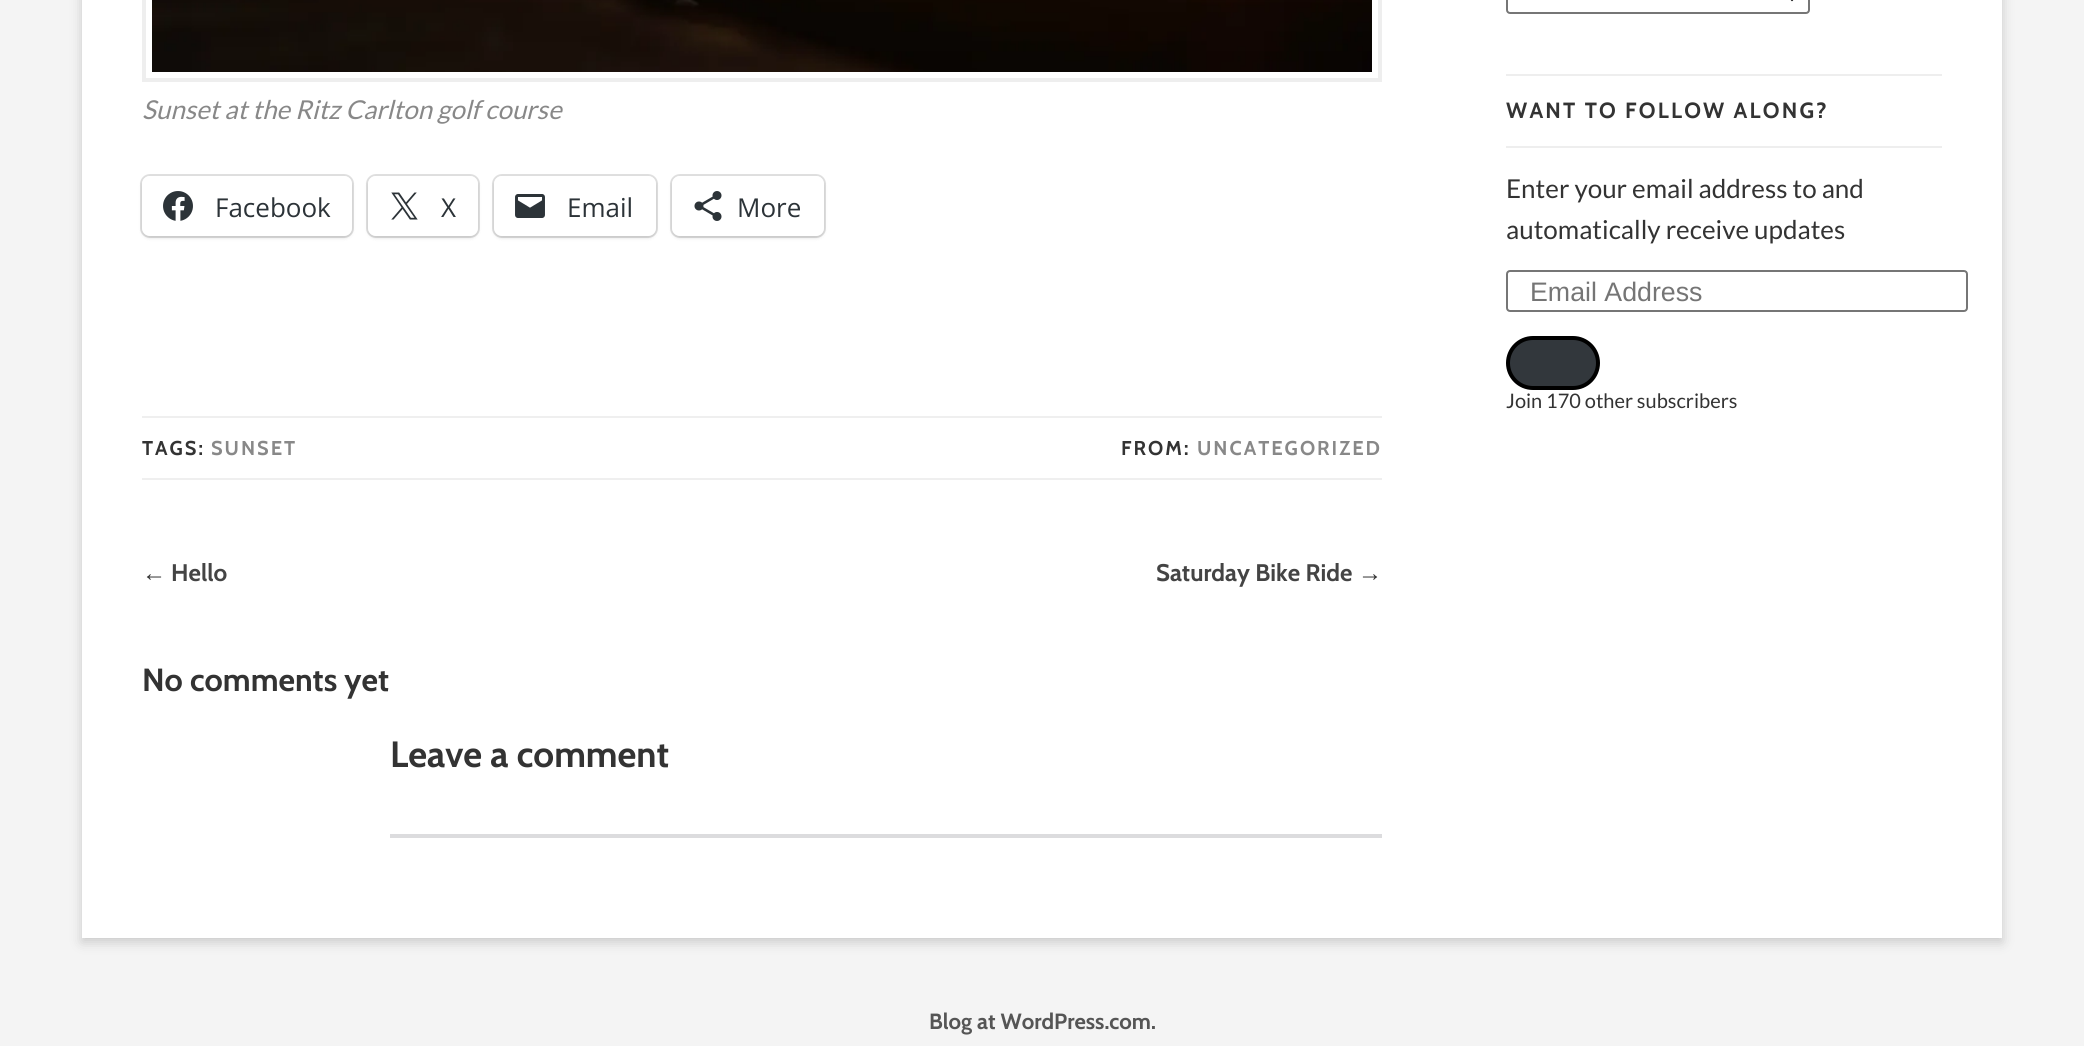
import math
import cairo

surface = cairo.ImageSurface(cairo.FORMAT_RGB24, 2084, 1046)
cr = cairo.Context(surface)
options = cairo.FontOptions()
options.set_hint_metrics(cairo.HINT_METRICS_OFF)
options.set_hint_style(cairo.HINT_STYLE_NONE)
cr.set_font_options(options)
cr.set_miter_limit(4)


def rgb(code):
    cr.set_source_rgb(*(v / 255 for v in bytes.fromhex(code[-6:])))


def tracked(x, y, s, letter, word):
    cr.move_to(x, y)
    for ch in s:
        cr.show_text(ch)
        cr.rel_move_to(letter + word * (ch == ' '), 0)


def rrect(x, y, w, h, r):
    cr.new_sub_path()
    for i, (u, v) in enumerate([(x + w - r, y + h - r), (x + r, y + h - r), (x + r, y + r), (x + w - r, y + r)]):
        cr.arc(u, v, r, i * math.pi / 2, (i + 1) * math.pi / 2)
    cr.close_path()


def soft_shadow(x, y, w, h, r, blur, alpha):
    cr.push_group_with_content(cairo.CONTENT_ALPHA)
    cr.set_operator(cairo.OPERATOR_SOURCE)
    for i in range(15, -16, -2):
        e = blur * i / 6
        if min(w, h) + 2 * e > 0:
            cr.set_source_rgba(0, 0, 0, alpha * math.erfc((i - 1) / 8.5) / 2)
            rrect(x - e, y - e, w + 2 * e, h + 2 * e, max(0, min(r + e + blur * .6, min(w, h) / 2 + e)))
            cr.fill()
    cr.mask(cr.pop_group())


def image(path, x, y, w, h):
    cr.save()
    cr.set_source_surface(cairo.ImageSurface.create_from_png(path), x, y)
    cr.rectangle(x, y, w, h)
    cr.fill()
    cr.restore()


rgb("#f4f4f4")
cr.paint()
rgb("#646464")
soft_shadow(82, -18, 1920, 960, 0, 6, 0.3)
rgb("#ffffff")
cr.rectangle(82, 0, 1920, 938)
cr.fill()
cr.rectangle(144, -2, 1236, 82)
rgb("#eeeeee")
cr.set_line_width(4)
cr.stroke()
image("img/1.png", 152, 0, 1220, 72)
rrect(141, 175, 212, 62, 9)
rgb("#e0e0e0")
cr.set_line_width(2)
cr.stroke()
rgb("#000000")
soft_shadow(142, 178, 210, 60, 8, 2, 0.12)
rgb("#ffffff")
rrect(142, 176, 210, 60, 8)
cr.fill()
image("img/2.png", 163, 191, 30, 30)
rrect(367, 175, 112, 62, 9)
rgb("#e0e0e0")
cr.stroke()
rgb("#000000")
soft_shadow(368, 178, 110, 60, 8, 2, 0.12)
rgb("#ffffff")
rrect(368, 176, 110, 60, 8)
cr.fill()
image("img/3.png", 391, 192, 27, 28)
rrect(493, 175, 164, 62, 9)
rgb("#e0e0e0")
cr.stroke()
rgb("#000000")
soft_shadow(494, 178, 162, 60, 8, 2, 0.12)
rgb("#ffffff")
rrect(494, 176, 162, 60, 8)
cr.fill()
image("img/4.png", 515, 194, 30, 24)
rrect(671, 175, 154, 62, 9)
rgb("#e0e0e0")
cr.stroke()
rgb("#000000")
soft_shadow(672, 178, 152, 60, 8, 2, 0.12)
rgb("#ffffff")
rrect(672, 176, 152, 60, 8)
cr.fill()
image("img/5.png", 694, 191, 28, 30)
for x, y, w, h, color in [
    (142, 416, 1240, 2, "#efefef"),
    (142, 478, 1240, 2, "#efefef"),
    (390, 834, 992, 4, "#dcdcde"),
]:
    rgb(color)
    cr.rectangle(x, y, w, h)
    cr.fill()
rrect(1507, -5, 302, 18, 3)
rgb("#767676")
cr.stroke()
cr.new_path()
cr.move_to(1784, -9.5)
cr.line_to(1792, -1.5)
cr.line_to(1800, -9.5)
rgb("#000000")
cr.set_line_width(4)
cr.stroke()
rgb("#eeeeee")
cr.rectangle(1506, 74, 436, 2)
cr.fill()
cr.rectangle(1506, 146, 436, 2)
cr.fill()
rrect(1507, 271, 460, 40, 3)
rgb("#767676")
cr.set_line_width(2)
cr.stroke()
rgb("#32373c")
rrect(1508, 338, 90, 50, 25)
cr.fill_preserve()
rgb("#000000")
cr.set_line_width(4)
cr.stroke()
cr.select_font_face("Lato", cairo.FONT_SLANT_ITALIC)
cr.set_font_size(26)
rgb("#888888")
cr.move_to(142, 119)
cr.show_text("Sunset at the Ritz Carlton golf course")
cr.select_font_face("Open Sans")
rgb("#2c3338")
for x, y, s in [
    (215, 217, "Facebook"),
    (441, 217, "X"),
    (567, 217, "Email"),
    (737, 217, "More"),
]:
    cr.move_to(x, y)
    cr.show_text(s)
cr.select_font_face("Cabin", cairo.FONT_SLANT_NORMAL, cairo.FONT_WEIGHT_BOLD)
cr.set_font_size(20)
rgb("#333333")
tracked(142, 455, "TAGS:", 2, 0)
rgb("#888888")
tracked(211, 455, "SUNSET", 2, 0)
rgb("#333333")
tracked(1121, 455, "FROM:", 2, 0)
rgb("#888888")
tracked(1197, 455, "UNCATEGORIZED", 2, 0)
cr.select_font_face("Liberation Sans")
cr.set_font_size(24)
rgb("#333333")
cr.move_to(142, 581)
cr.show_text("←")
cr.select_font_face("Cabin", cairo.FONT_SLANT_NORMAL, cairo.FONT_WEIGHT_BOLD)
rgb("#444444")
cr.move_to(171, 581)
cr.show_text("Hello")
cr.move_to(1156, 581)
cr.show_text("Saturday Bike Ride")
cr.select_font_face("Liberation Sans")
rgb("#333333")
cr.move_to(1358, 581)
cr.show_text("→")
cr.select_font_face("Cabin", cairo.FONT_SLANT_NORMAL, cairo.FONT_WEIGHT_BOLD)
cr.set_font_size(32)
cr.move_to(142, 691)
cr.show_text("No comments yet")
cr.set_font_size(36.5)
cr.move_to(390, 767)
cr.show_text("Leave a comment")
cr.set_font_size(22)
tracked(1506, 118, "WANT TO FOLLOW ALONG?", 2.2, 0)
cr.select_font_face("Lato")
cr.set_font_size(26)
cr.move_to(1506, 198)
cr.show_text("Enter your email address to and")
cr.move_to(1506, 239)
cr.show_text("automatically receive updates")
cr.select_font_face("Liberation Sans")
cr.set_font_size(26.75)
rgb("#757575")
cr.move_to(1530, 301)
cr.show_text("Email Address")
cr.select_font_face("Lato")
cr.set_font_size(20)
rgb("#333333")
cr.move_to(1506, 408)
cr.show_text("Join 170 other subscribers")
cr.select_font_face("Cabin", cairo.FONT_SLANT_NORMAL, cairo.FONT_WEIGHT_BOLD)
cr.set_font_size(22)
rgb("#555555")
cr.move_to(929, 1029)
cr.show_text("Blog at WordPress.com.")
surface.write_to_png("page.png")
